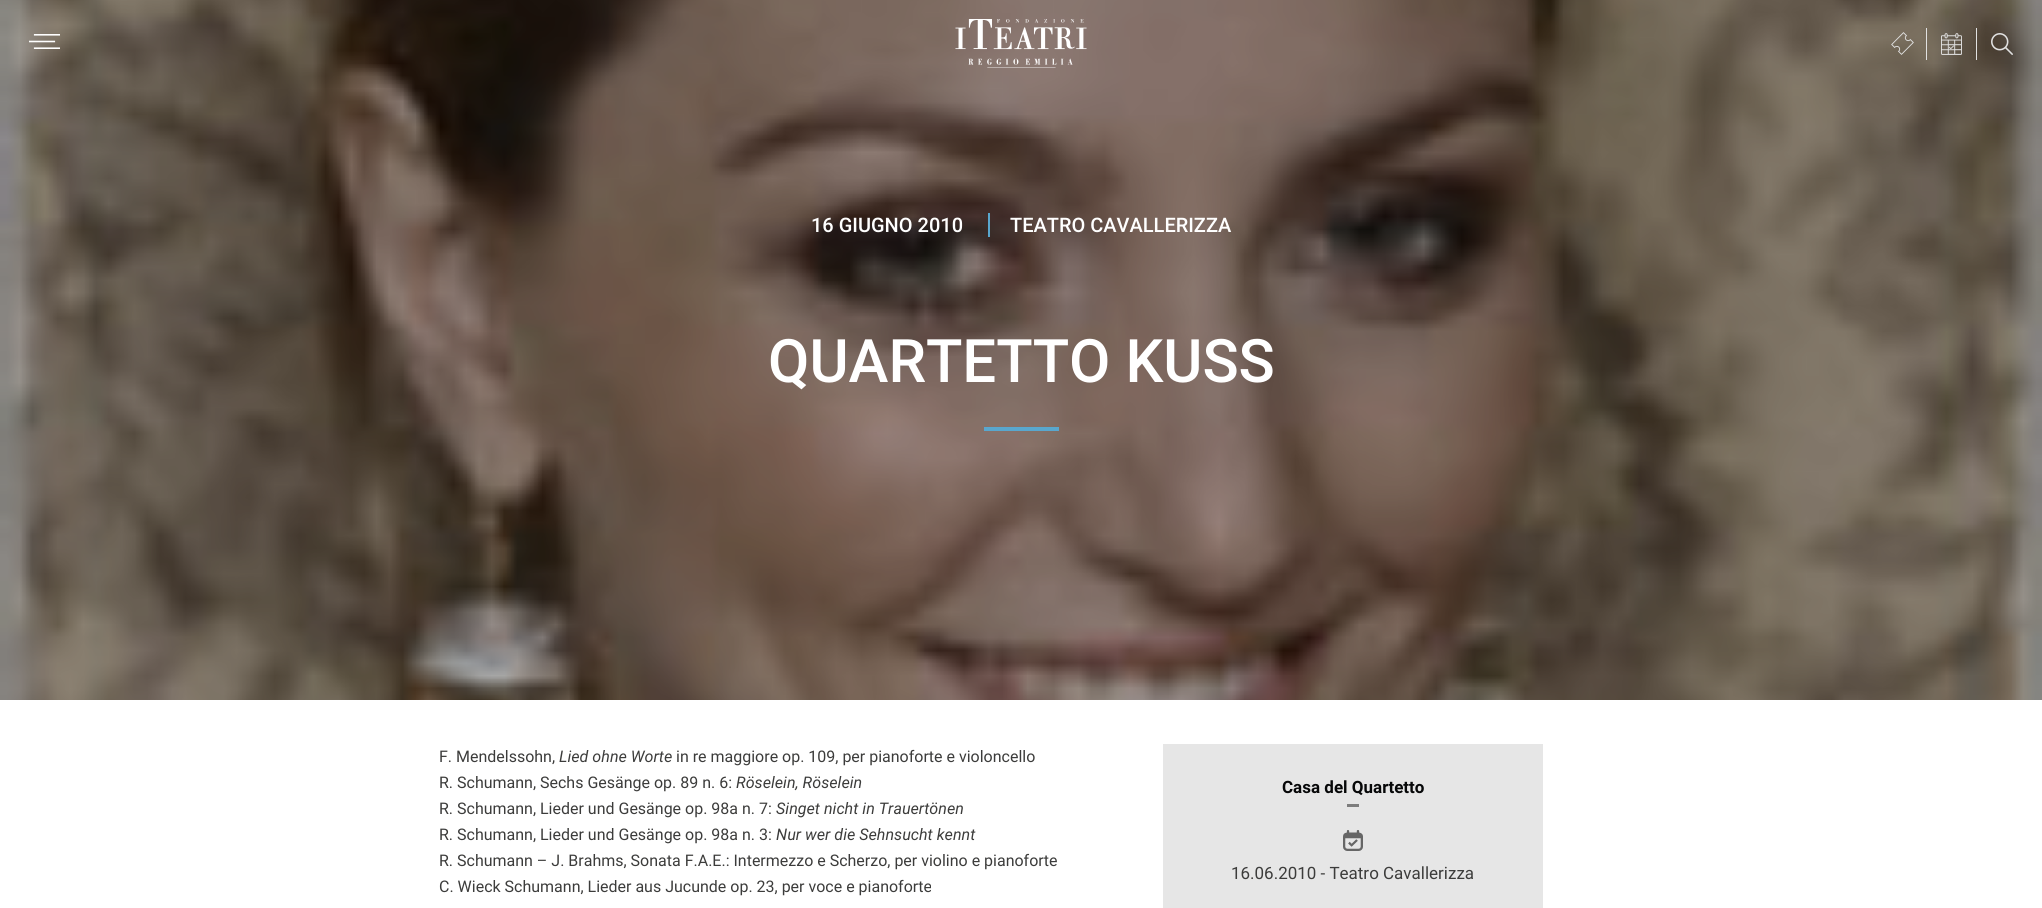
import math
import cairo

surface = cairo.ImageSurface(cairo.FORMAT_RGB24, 2042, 908)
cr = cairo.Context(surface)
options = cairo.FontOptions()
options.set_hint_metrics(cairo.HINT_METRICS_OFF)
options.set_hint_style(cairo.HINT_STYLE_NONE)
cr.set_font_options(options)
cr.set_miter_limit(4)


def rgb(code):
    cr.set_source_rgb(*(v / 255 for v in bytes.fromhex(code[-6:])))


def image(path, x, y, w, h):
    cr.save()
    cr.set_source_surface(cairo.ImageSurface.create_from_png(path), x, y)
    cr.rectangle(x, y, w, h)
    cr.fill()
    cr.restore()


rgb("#ffffff")
cr.paint()
image("img/6.png", 0, 0, 2042, 700)
image("img/1.png", 29, 34, 31, 15)
image("img/2.png", 955, 19, 132, 49)
rgb("#e1e1e1")
cr.rectangle(1926, 28, 1, 32)
cr.fill()
image("img/3.png", 1891, 32, 23, 23)
cr.rectangle(1976, 28, 1, 32)
cr.fill()
image("img/4.png", 1941, 33, 21, 22)
image("img/5.png", 1991, 33, 22, 22)
for x, y, w, h, color in [
    (988, 213, 2, 24, "#59a7ce"),
    (984, 427, 75, 4, "#59a7ce"),
    (1163, 744, 380, 164, "#e6e6e6"),
    (1347, 804, 12, 3, "#7d7d7d"),
]:
    rgb(color)
    cr.rectangle(x, y, w, h)
    cr.fill()
image("img/7.png", 1343, 830, 20, 21)
cr.select_font_face("Roboto Medium")
cr.set_font_size(20)
rgb("#ffffff")
cr.move_to(811, 232)
cr.show_text("16 GIUGNO 2010")
cr.move_to(1010, 232)
cr.show_text("TEATRO CAVALLERIZZA")
cr.set_font_size(60)
cr.move_to(768, 382)
cr.show_text("QUARTETTO KUSS")
cr.select_font_face("Roboto")
cr.set_font_size(16)
rgb("#3c3c3b")
cr.move_to(439, 762)
cr.show_text("F. Mendelssohn,")
cr.select_font_face("Roboto", cairo.FONT_SLANT_ITALIC)
cr.move_to(559, 762)
cr.show_text("Lied ohne Worte")
cr.select_font_face("Roboto")
cr.move_to(676, 762)
cr.show_text("in re maggiore op. 109, per pianoforte e violoncello")
cr.move_to(439, 788)
cr.show_text("R. Schumann, Sechs Gesänge op. 89 n. 6:")
cr.select_font_face("Roboto", cairo.FONT_SLANT_ITALIC)
cr.move_to(736, 788)
cr.show_text("Röselein, Röselein")
cr.select_font_face("Roboto")
cr.move_to(439, 814)
cr.show_text("R. Schumann, Lieder und Gesänge op. 98a n. 7:")
cr.select_font_face("Roboto", cairo.FONT_SLANT_ITALIC)
cr.move_to(776, 814)
cr.show_text("Singet nicht in Trauertönen")
cr.select_font_face("Roboto")
cr.move_to(439, 840)
cr.show_text("R. Schumann, Lieder und Gesänge op. 98a n. 3:")
cr.select_font_face("Roboto", cairo.FONT_SLANT_ITALIC)
cr.move_to(776, 840)
cr.show_text("Nur wer die Sehnsucht kennt")
cr.select_font_face("Roboto")
cr.move_to(439, 866)
cr.show_text("R. Schumann – J. Brahms, Sonata F.A.E.: Intermezzo e Scherzo, per violino e pianoforte")
cr.move_to(439, 892)
cr.show_text("C. Wieck Schumann, Lieder aus Jucunde op. 23, per voce e pianoforte")
cr.select_font_face("Roboto", cairo.FONT_SLANT_NORMAL, cairo.FONT_WEIGHT_BOLD)
cr.set_font_size(17)
rgb("#070809")
cr.move_to(1282, 793)
cr.show_text("Casa del Quartetto")
cr.select_font_face("Roboto")
rgb("#3c3c3b")
cr.move_to(1231, 879)
cr.show_text("16.06.2010 - Teatro Cavallerizza")
surface.write_to_png("page.png")
